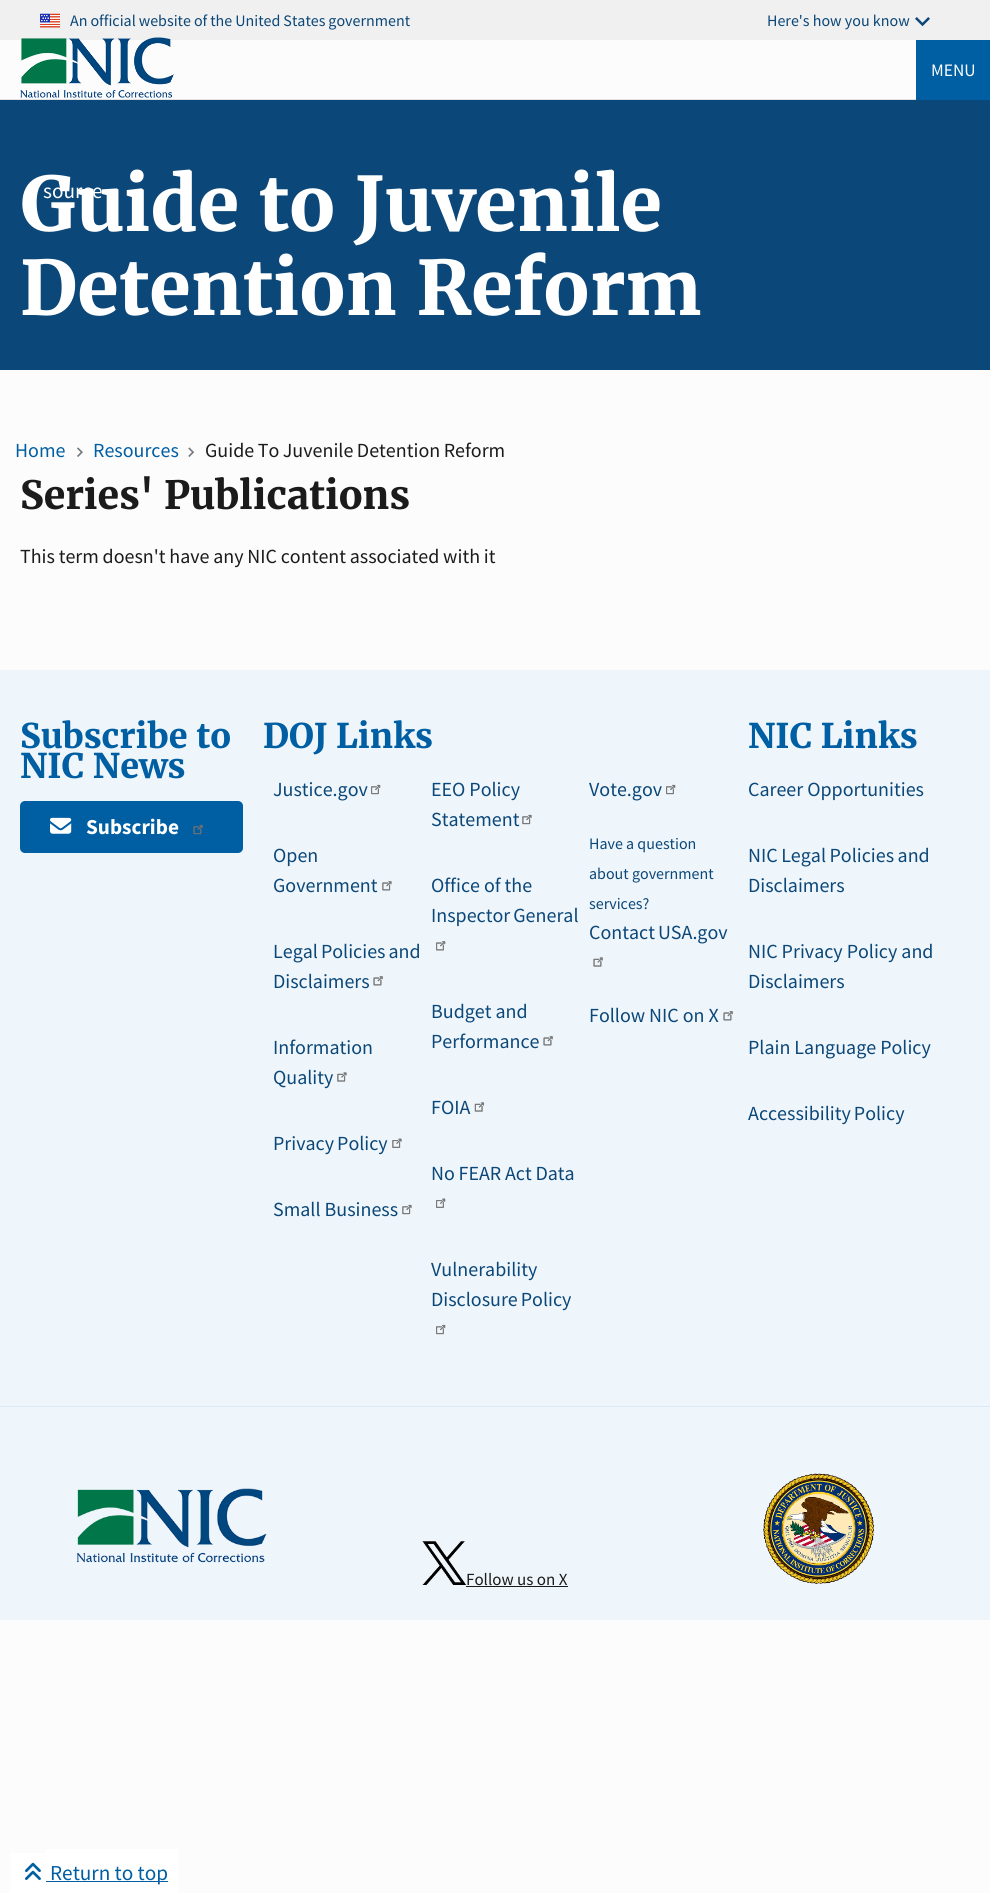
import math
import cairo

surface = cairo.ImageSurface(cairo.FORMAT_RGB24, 990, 1893)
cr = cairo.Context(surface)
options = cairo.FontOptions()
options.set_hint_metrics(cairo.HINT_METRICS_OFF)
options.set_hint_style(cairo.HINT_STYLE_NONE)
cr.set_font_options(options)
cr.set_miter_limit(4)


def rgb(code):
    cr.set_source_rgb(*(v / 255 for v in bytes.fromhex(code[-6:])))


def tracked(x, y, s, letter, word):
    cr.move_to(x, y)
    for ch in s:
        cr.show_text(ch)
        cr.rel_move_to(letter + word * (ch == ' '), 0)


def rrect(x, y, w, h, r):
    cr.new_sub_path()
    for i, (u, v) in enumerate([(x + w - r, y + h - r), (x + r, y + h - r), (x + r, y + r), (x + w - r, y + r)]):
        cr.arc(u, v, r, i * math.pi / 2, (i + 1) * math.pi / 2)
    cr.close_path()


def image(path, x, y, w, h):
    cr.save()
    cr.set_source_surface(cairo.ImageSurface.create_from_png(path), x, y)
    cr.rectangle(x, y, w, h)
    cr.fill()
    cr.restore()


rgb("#fcfcfc")
cr.paint()
rgb("#f0f0f0")
cr.rectangle(0, 0, 990, 40)
cr.fill()
image("img/1.png", 40, 13, 20, 15)
image("img/2.png", 915, 17, 15, 10)
rgb("#dfe1e2")
cr.rectangle(0, 99, 916, 1)
cr.fill()
image("img/3.png", 20, 37, 154, 61)
rgb("#005ea2")
cr.rectangle(916, 40, 74, 60)
cr.fill()
rgb("#0b4778")
cr.rectangle(0, 100, 990, 270)
cr.fill()
image("img/4.png", 77, 447, 6, 10)
image("img/5.png", 188, 447, 7, 10)
rgb("#eff6fb")
cr.rectangle(0, 670, 990, 736)
cr.fill()
rgb("#005ea2")
rrect(20, 801, 223, 52, 5)
cr.fill()
image("img/6.png", 50, 817, 22, 17)
image("img/7.png", 193, 824, 10, 11)
image("img/8.png", 371, 784, 10, 11)
image("img/9.png", 382, 881, 10, 10)
image("img/10.png", 373, 976, 10, 10)
image("img/11.png", 337, 1072, 10, 10)
image("img/12.png", 392, 1138, 10, 10)
image("img/13.png", 402, 1204, 10, 11)
image("img/13.png", 522, 814, 10, 11)
image("img/14.png", 436, 941, 10, 10)
image("img/10.png", 543, 1036, 10, 10)
image("img/15.png", 474, 1102, 11, 10)
image("img/16.png", 436, 1198, 10, 10)
image("img/8.png", 436, 1324, 10, 11)
image("img/8.png", 666, 784, 10, 11)
image("img/17.png", 593, 957, 10, 10)
image("img/10.png", 723, 1011, 10, 10)
rgb("#eff6fb")
cr.rectangle(0, 1407, 990, 213)
cr.fill()
rgb("#d9e8f6")
cr.rectangle(0, 1406, 990, 1)
cr.fill()
image("img/18.png", 76, 1488, 191, 75)
image("img/19.png", 763, 1473, 112, 111)
image("img/20.png", 422, 1541, 45, 44)
for x, y, w, h, color in [
    (466, 1586, 102, 1, "#1b1b1b"),
    (10, 1853, 36, 40, "#ffffff"),
    (46, 1849, 132, 44, "#ffffff"),
]:
    rgb(color)
    cr.rectangle(x, y, w, h)
    cr.fill()
image("img/21.png", 25, 1862, 16, 18)
rgb("#005ea2")
cr.rectangle(46, 1881, 122, 1)
cr.fill()
cr.select_font_face("Source Sans Pro")
cr.set_font_size(16)
rgb("#0b4778")
tracked(70, 26, "An official website of the United States government", 0, -0.25)
cr.move_to(767, 26)
cr.show_text("Here's how you know")
cr.set_font_size(17.5)
rgb("#ffffff")
cr.move_to(931, 76)
cr.show_text("MENU")
cr.select_font_face("Merriweather", cairo.FONT_SLANT_NORMAL, cairo.FONT_WEIGHT_BOLD)
cr.set_font_size(75)
cr.move_to(20, 231)
cr.show_text("Guide to Juvenile")
cr.move_to(20, 315)
cr.show_text("Detention Reform")
cr.select_font_face("Source Sans Pro")
cr.set_font_size(21.25)
cr.move_to(43, 198)
cr.show_text("source")
cr.set_font_size(20)
rgb("#005ea2")
cr.move_to(15, 457)
cr.show_text("Home")
cr.move_to(93, 457)
cr.show_text("Resources")
rgb("#1b1b1b")
tracked(205, 457, "Guide To Juvenile Detention Reform", 0, -0.5)
cr.select_font_face("Merriweather", cairo.FONT_SLANT_NORMAL, cairo.FONT_WEIGHT_BOLD)
cr.set_font_size(39)
cr.move_to(20, 509)
cr.show_text("Series' Publications")
cr.select_font_face("Source Sans Pro")
cr.set_font_size(20)
tracked(20, 563, "This term doesn't have any NIC content associated with it", 0, -0.25)
cr.select_font_face("Merriweather", cairo.FONT_SLANT_NORMAL, cairo.FONT_WEIGHT_BOLD)
cr.set_font_size(34)
rgb("#005ea2")
cr.move_to(20, 748)
cr.show_text("Subscribe to")
cr.move_to(20, 778)
cr.show_text("NIC News")
cr.select_font_face("Source Sans Pro", cairo.FONT_SLANT_NORMAL, cairo.FONT_WEIGHT_BOLD)
cr.set_font_size(21.25)
rgb("#ffffff")
cr.move_to(86, 834)
cr.show_text("Subscribe")
cr.select_font_face("Merriweather", cairo.FONT_SLANT_NORMAL, cairo.FONT_WEIGHT_BOLD)
cr.set_font_size(34)
rgb("#005ea2")
cr.move_to(263, 748)
cr.show_text("DOJ Links")
cr.select_font_face("Source Sans Pro")
cr.set_font_size(20)
rgb("#0b4778")
for x, y, s in [
    (273, 796, "Justice.gov"),
    (273, 862, "Open"),
    (273, 892, "Government"),
]:
    cr.move_to(x, y)
    cr.show_text(s)
tracked(273, 958, "Legal Policies and", 0, -1)
for x, y, s in [
    (273, 988, "Disclaimers"),
    (273, 1054, "Information"),
    (273, 1084, "Quality"),
]:
    cr.move_to(x, y)
    cr.show_text(s)
tracked(273, 1150, "Privacy Policy", 0, -1)
for x, y, s in [
    (273, 1216, "Small Business"),
    (431, 796, "EEO Policy"),
    (431, 826, "Statement"),
    (431, 892, "Office of the"),
]:
    cr.move_to(x, y)
    cr.show_text(s)
tracked(431, 922, "Inspector General", 0, -1)
for x, y, s in [
    (431, 1018, "Budget and"),
    (431, 1048, "Performance"),
    (431, 1114, "FOIA"),
]:
    cr.move_to(x, y)
    cr.show_text(s)
tracked(431, 1180, "No FEAR Act Data", 0, -0.25)
cr.move_to(431, 1276)
cr.show_text("Vulnerability")
tracked(431, 1306, "Disclosure Policy", 0, -1)
cr.move_to(589, 796)
cr.show_text("Vote.gov")
cr.set_font_size(16)
for x, y, s in [
    (589, 849, "Have a question"),
    (589, 879, "about government"),
    (589, 909, "services?"),
]:
    cr.move_to(x, y)
    cr.show_text(s)
cr.set_font_size(20)
tracked(589, 939, "Contact USA.gov", 0, -1)
cr.move_to(589, 1022)
cr.show_text("Follow NIC on X")
cr.select_font_face("Merriweather", cairo.FONT_SLANT_NORMAL, cairo.FONT_WEIGHT_BOLD)
cr.set_font_size(34)
rgb("#005ea2")
cr.move_to(748, 748)
cr.show_text("NIC Links")
cr.select_font_face("Source Sans Pro")
cr.set_font_size(20)
rgb("#0b4778")
cr.move_to(748, 796)
cr.show_text("Career Opportunities")
tracked(748, 862, "NIC Legal Policies and", 0, -0.5)
for x, y, s in [
    (748, 892, "Disclaimers"),
    (748, 958, "NIC Privacy Policy and"),
    (748, 988, "Disclaimers"),
    (748, 1054, "Plain Language Policy"),
]:
    cr.move_to(x, y)
    cr.show_text(s)
tracked(748, 1120, "Accessibility Policy", 0, -1)
cr.set_font_size(17)
rgb("#1b1b1b")
cr.move_to(466, 1585)
cr.show_text("Follow us on X")
cr.set_font_size(21.25)
rgb("#005ea2")
cr.move_to(50, 1880)
cr.show_text("Return to top")
surface.write_to_png("page.png")
